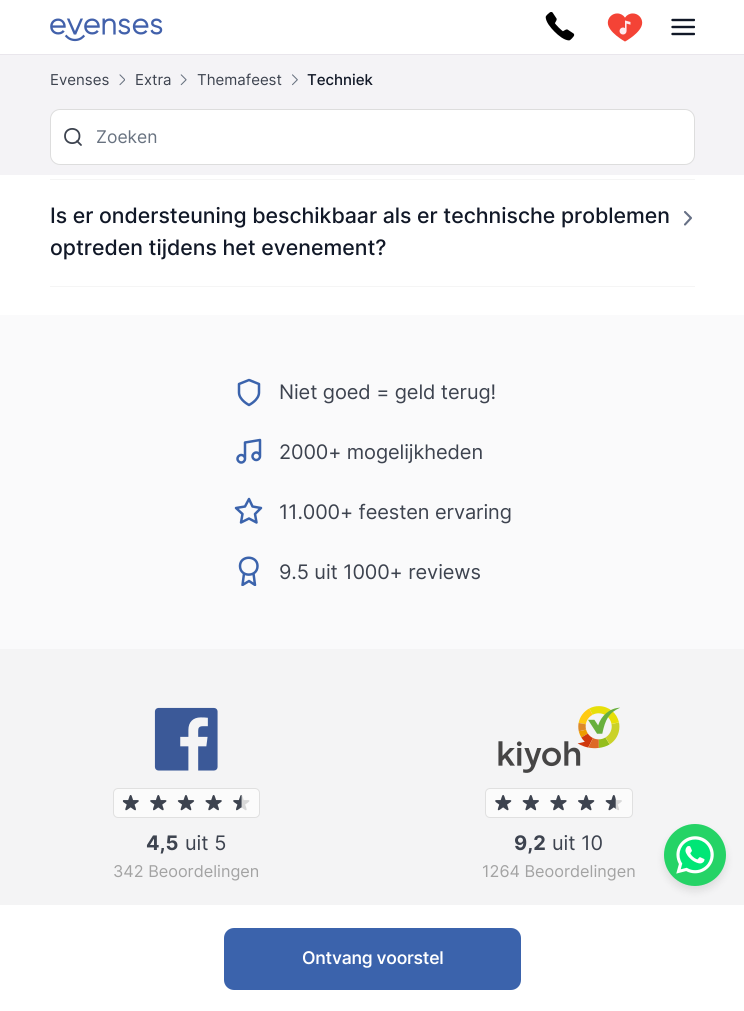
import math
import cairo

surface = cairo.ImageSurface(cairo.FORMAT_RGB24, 744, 1011)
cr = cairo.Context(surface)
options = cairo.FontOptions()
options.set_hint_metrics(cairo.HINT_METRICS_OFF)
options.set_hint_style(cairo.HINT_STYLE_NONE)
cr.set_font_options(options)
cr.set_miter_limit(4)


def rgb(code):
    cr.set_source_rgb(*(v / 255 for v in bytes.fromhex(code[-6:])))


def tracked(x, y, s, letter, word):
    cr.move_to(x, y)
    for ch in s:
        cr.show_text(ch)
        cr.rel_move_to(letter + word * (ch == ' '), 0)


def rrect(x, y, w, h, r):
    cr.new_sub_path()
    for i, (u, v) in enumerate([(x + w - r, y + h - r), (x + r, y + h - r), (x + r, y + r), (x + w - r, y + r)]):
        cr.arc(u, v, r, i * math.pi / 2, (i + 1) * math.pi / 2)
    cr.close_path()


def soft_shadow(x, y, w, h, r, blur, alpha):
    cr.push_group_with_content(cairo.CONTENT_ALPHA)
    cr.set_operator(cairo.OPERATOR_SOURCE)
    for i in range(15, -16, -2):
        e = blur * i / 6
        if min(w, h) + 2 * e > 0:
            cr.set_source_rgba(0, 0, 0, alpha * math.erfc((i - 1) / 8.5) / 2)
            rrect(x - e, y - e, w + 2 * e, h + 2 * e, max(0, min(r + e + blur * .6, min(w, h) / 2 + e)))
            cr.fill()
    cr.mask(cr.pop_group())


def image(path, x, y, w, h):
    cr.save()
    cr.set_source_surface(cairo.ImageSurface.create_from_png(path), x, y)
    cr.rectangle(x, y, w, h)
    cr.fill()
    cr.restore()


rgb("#ffffff")
cr.paint()
rgb("#e9e6ec")
cr.rectangle(0, 54, 744, 1)
cr.fill()
image("img/1.png", 50, 18, 113, 24)
image("img/2.png", 545, 12, 30, 29)
image("img/3.png", 607, 13, 36, 29)
cr.save()
cr.rectangle(671, 15, 24, 24)
cr.clip()
cr.new_path()
cr.move_to(672.5, 27)
cr.line_to(694, 27)
cr.move_to(672.5, 20)
cr.line_to(694, 20)
cr.move_to(672.5, 34)
cr.line_to(694, 34)
rgb("#111827")
cr.set_line_width(2.4)
cr.set_line_cap(cairo.LINE_CAP_ROUND)
cr.set_line_join(cairo.LINE_JOIN_ROUND)
cr.stroke()
cr.restore()
rgb("#f4f3f6")
cr.rectangle(0, 55, 744, 120)
cr.fill()
image("img/4.png", 119, 74, 6, 12)
image("img/5.png", 180, 74, 7, 12)
image("img/6.png", 292, 74, 6, 12)
rgb("#ffffff")
rrect(50.5, 109.5, 644, 55, 9.5)
cr.fill_preserve()
rgb("#dddddd")
cr.set_line_width(1)
cr.stroke()
cr.new_path()
cr.move_to(81, 145)
cr.line_to(77, 141)
cr.move_to(79.5, 136)
cr.curve_to(79.5, 145.5, 65, 145.5, 65, 136)
cr.curve_to(65, 126.5, 79.5, 126.5, 79.5, 136)
cr.close_path()
rgb("#3d434f")
cr.set_line_width(1.8)
cr.set_line_cap(cairo.LINE_CAP_ROUND)
cr.set_line_join(cairo.LINE_JOIN_ROUND)
cr.stroke()
rgb("#f5f5f5")
cr.rectangle(50, 179, 645, 1)
cr.fill()
cr.rectangle(50, 286, 645, 1)
cr.fill()
cr.new_path()
cr.move_to(685, 224.5)
cr.line_to(691, 218)
cr.line_to(685, 212)
rgb("#667085")
cr.set_line_width(2.1)
cr.stroke()
rgb("#fafafb")
cr.rectangle(0, 315, 744, 334)
cr.fill()
cr.new_path()
cr.move_to(249, 405)
cr.curve_to(249, 405, 259, 400, 259, 392.5)
cr.line_to(259, 384)
cr.line_to(249, 380)
cr.line_to(239, 384)
cr.line_to(239, 392.5)
cr.curve_to(239, 400, 249, 405, 249, 405)
cr.close_path()
rgb("#3b63ac")
cr.set_line_width(2.5)
cr.stroke()
image("img/7.png", 236, 438, 26, 26)
cr.new_path()
cr.move_to(249, 499)
cr.line_to(252.5, 506.5)
cr.line_to(261, 508)
cr.line_to(255, 514)
cr.line_to(256.5, 522.5)
cr.line_to(249, 518.5)
cr.line_to(241, 522.5)
cr.line_to(242.5, 514)
cr.line_to(236, 508)
cr.line_to(245, 506.5)
cr.close_path()
cr.stroke()
cr.save()
cr.rectangle(234, 556, 30, 30)
cr.clip()
cr.new_path()
cr.move_to(244, 573.5)
cr.line_to(242.5, 585)
cr.line_to(249, 581)
cr.line_to(255, 585)
cr.line_to(253.5, 573.5)
cr.move_to(257.5, 566)
cr.curve_to(257.5, 577.5, 240, 577.5, 240, 566)
cr.curve_to(240, 555, 257.5, 555, 257.5, 566)
cr.close_path()
cr.stroke()
cr.restore()
rgb("#f4f4f5")
cr.rectangle(0, 649, 744, 256)
cr.fill()
image("img/8.png", 154, 707, 64, 64)
cr.set_source_rgba(1, 1, 1, 0.62)
rrect(113.5, 788.5, 146, 29, 4.5)
cr.fill_preserve()
rgb("#e0e0e0")
cr.set_line_width(1)
cr.set_line_cap(cairo.LINE_CAP_BUTT)
cr.set_line_join(cairo.LINE_JOIN_MITER)
cr.stroke()
image("img/9.png", 122, 795, 128, 16)
image("img/10.png", 123, 795, 119, 16)
image("img/11.png", 498, 706, 122, 67)
cr.set_source_rgba(1, 1, 1, 0.62)
rrect(485.5, 788.5, 147, 29, 4.5)
cr.fill_preserve()
rgb("#e0e0e0")
cr.stroke()
image("img/12.png", 495, 795, 127, 16)
image("img/13.png", 495, 795, 121, 16)
rgb("#3b63ac")
rrect(224, 928, 297, 62, 10)
cr.fill()
rgb("#000000")
soft_shadow(664, 829, 62, 62, 31, 4, 0.1)
rgb("#25d366")
cr.arc(695, 855, 31, 0, 2 * math.pi)
cr.fill()
image("img/14.png", 676, 836, 38, 38)
cr.select_font_face("Inter")
cr.set_font_size(15)
rgb("#3d434f")
for x, y, s in [
    (50, 85, "Evenses"),
    (135, 85, "Extra"),
    (197, 85, "Themafeest"),
]:
    cr.move_to(x, y)
    cr.show_text(s)
cr.select_font_face("Inter Medium")
rgb("#111827")
cr.move_to(307, 85)
cr.show_text("Techniek")
cr.select_font_face("Inter")
cr.set_font_size(17.5)
rgb("#687280")
cr.move_to(96, 143)
cr.show_text("Zoeken")
cr.select_font_face("Inter Medium")
cr.set_font_size(21.25)
rgb("#111827")
cr.move_to(50, 223)
cr.show_text("Is er ondersteuning beschikbaar als er technische problemen")
cr.move_to(50, 255)
cr.show_text("optreden tijdens het evenement?")
cr.select_font_face("Inter")
cr.set_font_size(20)
rgb("#3d434f")
for x, y, s in [
    (279, 399, "Niet goed = geld terug!"),
    (279, 459, "2000+ mogelijkheden"),
    (279, 519, "11.000+ feesten ervaring"),
    (279, 579, "9.5 uit 1000+ reviews"),
]:
    tracked(x, y, s, -0.1, 0)
cr.select_font_face("Inter", cairo.FONT_SLANT_NORMAL, cairo.FONT_WEIGHT_BOLD)
cr.move_to(146, 850)
cr.show_text("4,5")
cr.select_font_face("Inter")
cr.move_to(185, 850)
cr.show_text("uit 5")
cr.set_font_size(16.25)
rgb("#a3a3a3")
cr.move_to(113, 877)
cr.show_text("342 Beoordelingen")
cr.select_font_face("Inter", cairo.FONT_SLANT_NORMAL, cairo.FONT_WEIGHT_BOLD)
cr.set_font_size(20)
rgb("#3d434f")
cr.move_to(514, 850)
cr.show_text("9,2")
cr.select_font_face("Inter")
cr.move_to(552, 850)
cr.show_text("uit 10")
cr.set_font_size(16.25)
rgb("#a3a3a3")
cr.move_to(482, 877)
cr.show_text("1264 Beoordelingen")
cr.select_font_face("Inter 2 Medium")
cr.set_font_size(17.5)
rgb("#ffffff")
tracked(302, 964, "Ontvang voorstel", -0.25, 0)
surface.write_to_png("page.png")
